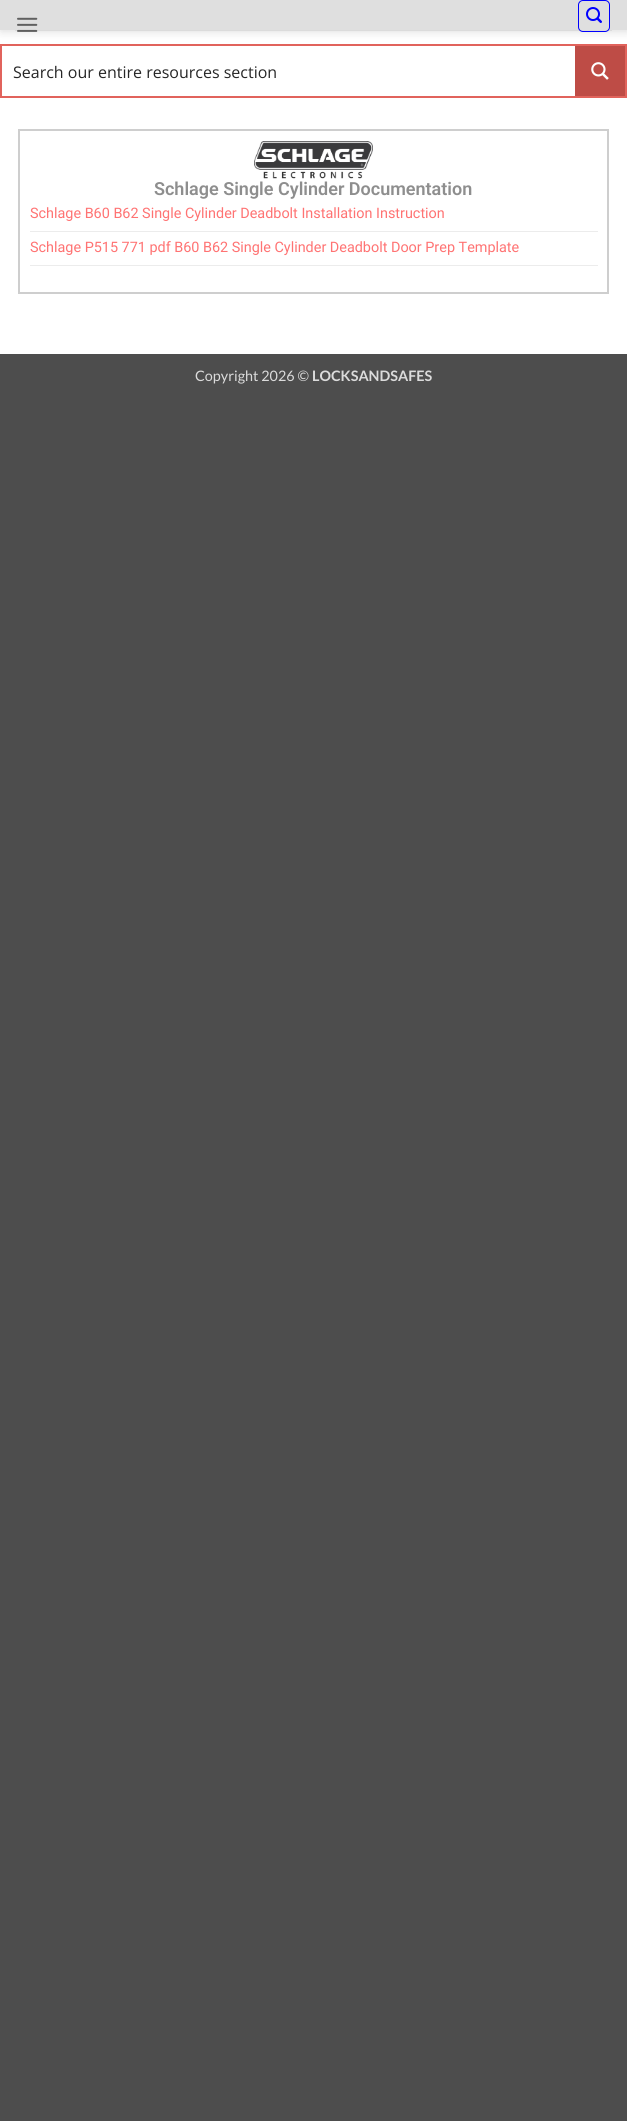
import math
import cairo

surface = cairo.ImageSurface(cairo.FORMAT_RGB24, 627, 2121)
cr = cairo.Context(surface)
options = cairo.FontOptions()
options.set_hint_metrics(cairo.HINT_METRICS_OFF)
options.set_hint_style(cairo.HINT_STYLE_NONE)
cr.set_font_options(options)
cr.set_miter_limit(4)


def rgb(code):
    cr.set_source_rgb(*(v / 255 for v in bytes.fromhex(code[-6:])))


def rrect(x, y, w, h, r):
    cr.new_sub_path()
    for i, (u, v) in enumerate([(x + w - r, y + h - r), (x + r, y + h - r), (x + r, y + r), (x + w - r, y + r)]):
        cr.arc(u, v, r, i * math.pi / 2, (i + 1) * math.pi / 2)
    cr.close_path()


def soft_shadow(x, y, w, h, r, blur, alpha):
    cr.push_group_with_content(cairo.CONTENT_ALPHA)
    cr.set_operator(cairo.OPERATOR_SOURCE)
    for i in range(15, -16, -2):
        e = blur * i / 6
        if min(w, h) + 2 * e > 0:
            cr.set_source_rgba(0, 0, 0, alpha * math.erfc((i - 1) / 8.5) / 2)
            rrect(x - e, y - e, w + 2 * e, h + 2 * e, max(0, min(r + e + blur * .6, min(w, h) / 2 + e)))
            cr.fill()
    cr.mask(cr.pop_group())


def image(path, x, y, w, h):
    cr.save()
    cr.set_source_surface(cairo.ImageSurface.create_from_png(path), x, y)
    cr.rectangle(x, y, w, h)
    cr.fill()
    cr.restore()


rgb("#4d4d4d")
cr.paint()
rgb("#ffffff")
cr.rectangle(0, 30, 627, 324)
cr.fill()
cr.rectangle(1, 45, 625, 52)
rgb("#e1635c")
cr.stroke()
rgb("#be4c46")
cr.rectangle(575, 46, 50, 50)
cr.fill()
rgb("#000000")
soft_shadow(1, 1, 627, 30, 0, 5, 0.15)
rgb("#dfdfdf")
cr.rectangle(0, 0, 627, 30)
cr.fill()
image("img/1.png", 17, 17, 21, 15)
rrect(578.5, 0.5, 31, 31, 4.5)
rgb("#0000ff")
cr.set_line_width(1)
cr.stroke()
image("img/2.png", 586, 7, 16, 16)
cr.set_source_rgba(0.29, 0.29, 0.29, 0.1)
cr.rectangle(15, 30, 597, 1)
cr.fill()
image("img/3.png", 591, 62, 18, 18)
cr.rectangle(19, 130, 589, 163)
rgb("#cecece")
cr.set_line_width(2)
cr.stroke()
image("img/4.png", 254, 141, 119, 38)
rgb("#ececec")
cr.rectangle(30, 231, 568, 1)
cr.fill()
cr.rectangle(30, 265, 568, 1)
cr.fill()
cr.select_font_face("Open Sans")
cr.set_font_size(16)
rgb("#262626")
cr.move_to(13, 78)
cr.show_text("Search our entire resources section")
cr.select_font_face("Roboto SemiBold")
cr.set_font_size(18)
rgb("#8e8e8e")
cr.move_to(154, 195)
cr.show_text("Schlage Single Cylinder Documentation")
cr.select_font_face("Roboto")
cr.set_font_size(14.4)
rgb("#ff7373")
cr.move_to(30, 218)
cr.show_text("Schlage B60 B62 Single Cylinder Deadbolt Installation Instruction")
cr.move_to(30, 252)
cr.show_text("Schlage P515 771 pdf B60 B62 Single Cylinder Deadbolt Door Prep Template")
cr.select_font_face("Lato")
rgb("#dbdbdb")
cr.move_to(195, 381)
cr.show_text("Copyright 2026 ©")
cr.select_font_face("Lato", cairo.FONT_SLANT_NORMAL, cairo.FONT_WEIGHT_BOLD)
cr.move_to(312, 381)
cr.show_text("LOCKSANDSAFES")
surface.write_to_png("page.png")
